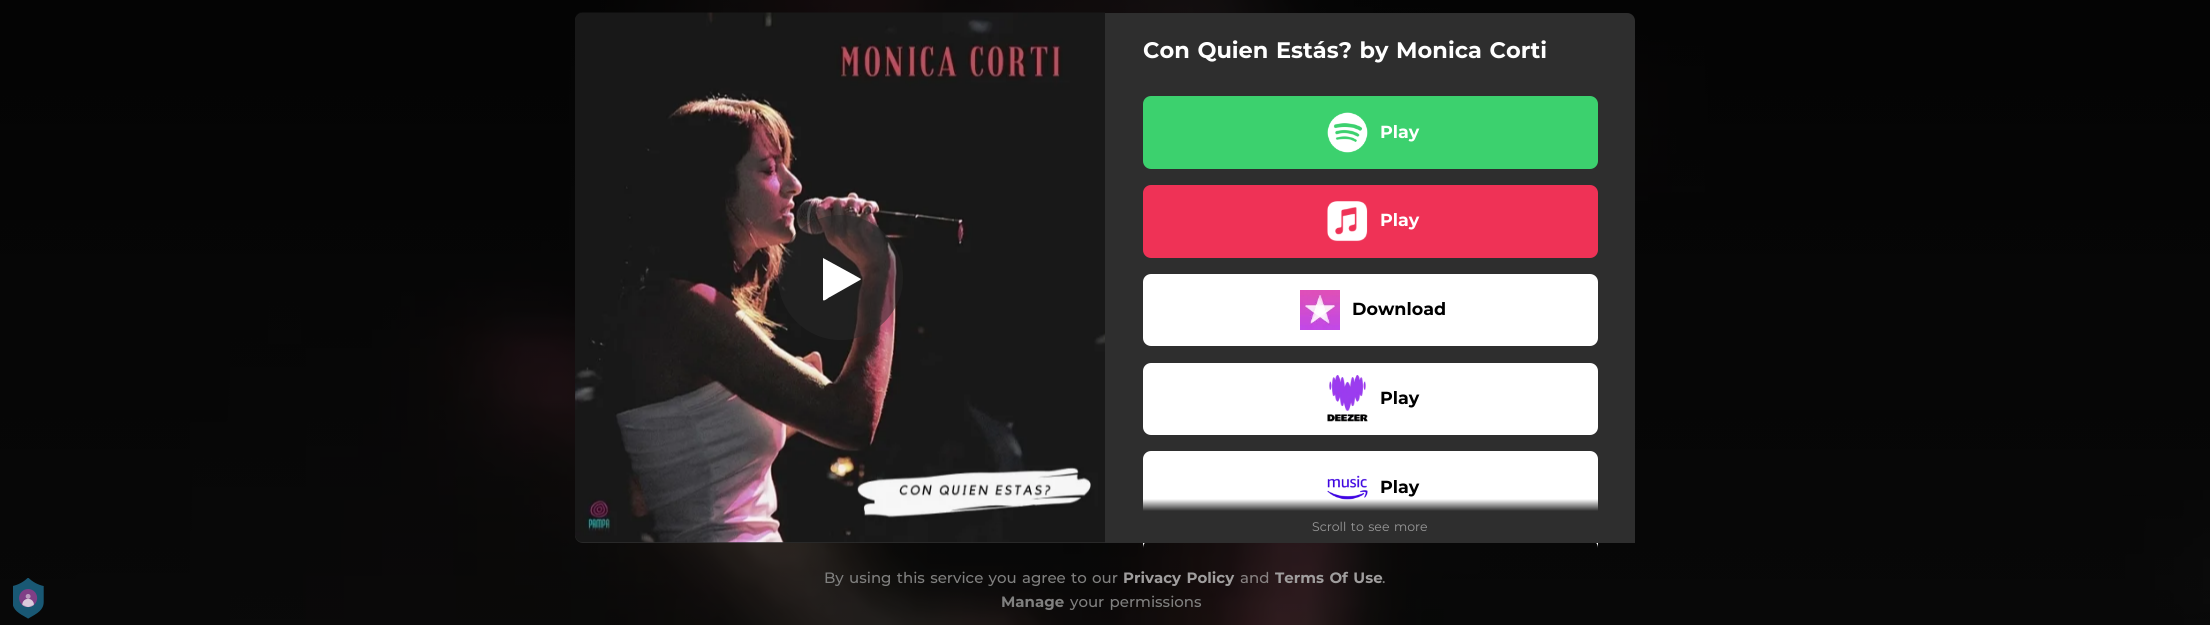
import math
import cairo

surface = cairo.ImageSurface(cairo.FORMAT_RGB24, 2210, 625)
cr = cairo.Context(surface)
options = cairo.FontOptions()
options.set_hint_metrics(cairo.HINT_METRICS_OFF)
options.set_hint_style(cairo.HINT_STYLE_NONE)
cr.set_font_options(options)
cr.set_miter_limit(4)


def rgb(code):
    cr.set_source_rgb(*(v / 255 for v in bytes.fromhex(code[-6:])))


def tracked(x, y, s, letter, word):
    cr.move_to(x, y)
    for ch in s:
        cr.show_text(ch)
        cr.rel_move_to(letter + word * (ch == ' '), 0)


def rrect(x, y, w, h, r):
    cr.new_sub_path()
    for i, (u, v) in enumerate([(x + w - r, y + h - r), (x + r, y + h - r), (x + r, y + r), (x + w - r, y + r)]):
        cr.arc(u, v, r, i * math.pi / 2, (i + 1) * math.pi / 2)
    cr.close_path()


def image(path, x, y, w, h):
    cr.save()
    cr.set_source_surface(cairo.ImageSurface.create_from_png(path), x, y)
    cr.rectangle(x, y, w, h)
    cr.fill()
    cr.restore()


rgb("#ffffff")
cr.paint()
image("img/2.png", 0, 0, 2210, 625)
image("img/1.png", 13, 578, 31, 41)
rgb("#2f2f2f")
cr.new_path()
cr.move_to(583, 13)
cr.line_to(1105, 13)
cr.line_to(1105, 543)
cr.line_to(583, 543)
cr.curve_to(578.5, 543, 575, 539.5, 575, 535)
cr.line_to(575, 21)
cr.curve_to(575, 16.5, 578.5, 13, 583, 13)
cr.close_path()
cr.fill()
image("img/3.png", 575, 12, 530, 531)
cr.set_source_rgba(0.157, 0.157, 0.157, 0.5)
cr.arc(840.5, 277.5, 62.5, 0, 2 * math.pi)
cr.fill()
rgb("#ffffff")
cr.new_path()
cr.move_to(860, 280)
cr.line_to(830, 297)
cr.curve_to(829, 297, 824, 302, 823, 300)
cr.line_to(823, 259)
cr.line_to(823, 258)
cr.line_to(854, 275)
cr.line_to(861, 279)
cr.line_to(860, 280)
cr.fill()
rgb("#2e2e2e")
cr.new_path()
cr.move_to(1105, 13)
cr.line_to(1627, 13)
cr.curve_to(1631.5, 13, 1635, 16.5, 1635, 21)
cr.line_to(1635, 535)
cr.curve_to(1635, 539.5, 1631.5, 543, 1627, 543)
cr.line_to(1105, 543)
cr.close_path()
cr.fill()
rgb("#3cd16e")
rrect(1143, 96, 455, 73, 8)
cr.fill()
image("img/4.png", 1327, 112, 41, 41)
rgb("#ef3256")
rrect(1143, 185, 455, 73, 8)
cr.fill()
image("img/5.png", 1327, 201, 41, 41)
rgb("#ffffff")
rrect(1143, 274, 455, 72, 8)
cr.fill()
image("img/6.png", 1300, 290, 40, 40)
rrect(1143, 363, 455, 72, 8)
cr.fill()
image("img/7.png", 1327, 375, 41, 47)
rrect(1143, 451, 455, 73, 8)
cr.fill()
image("img/8.png", 1327, 475, 41, 25)
cr.new_path()
cr.move_to(1151, 540)
cr.line_to(1590, 540)
cr.curve_to(1594.5, 540, 1598, 543.5, 1598, 548)
cr.line_to(1598, 543)
cr.line_to(1143, 543)
cr.line_to(1143, 548)
cr.curve_to(1143, 543.5, 1146.5, 540, 1151, 540)
cr.close_path()
cr.fill()
gradient = cairo.LinearGradient(1370, 511, 1370, 499)
gradient.add_color_stop_rgba(0, 0.18, 0.18, 0.18, 1)
gradient.add_color_stop_rgba(1, 0.18, 0.18, 0.18, 0)
cr.set_source(gradient)
cr.rectangle(1143, 499, 455, 12)
cr.fill()
rgb("#2e2e2e")
cr.rectangle(1143, 511, 492, 32)
cr.fill()
cr.select_font_face("Montserrat", cairo.FONT_SLANT_NORMAL, cairo.FONT_WEIGHT_BOLD)
cr.set_font_size(22.5)
rgb("#ffffff")
tracked(1143, 58, "Con Quien Estás? by Monica Corti", 0, 1.25)
cr.set_font_size(17.5)
cr.move_to(1380, 138)
cr.show_text("Play")
cr.move_to(1380, 226)
cr.show_text("Play")
rgb("#000000")
for x, y, s in [
    (1352, 315, "Download"),
    (1380, 404, "Play"),
    (1380, 493, "Play"),
]:
    cr.move_to(x, y)
    cr.show_text(s)
cr.select_font_face("Montserrat")
cr.set_font_size(12.5)
rgb("#999999")
tracked(1312, 531, "Scroll to see more", 0, 1.25)
cr.select_font_face("Montserrat Medium")
cr.set_font_size(15)
rgb("#80807f")
tracked(824, 583, "By using this service you agree to our", 0, 1.25)
cr.select_font_face("Montserrat", cairo.FONT_SLANT_NORMAL, cairo.FONT_WEIGHT_BOLD)
rgb("#a09e9e")
tracked(1123, 583, "Privacy Policy", 0, 1.25)
cr.select_font_face("Montserrat Medium")
rgb("#888383")
cr.move_to(1240, 583)
cr.show_text("and")
cr.select_font_face("Montserrat", cairo.FONT_SLANT_NORMAL, cairo.FONT_WEIGHT_BOLD)
rgb("#a09e9e")
tracked(1275, 583, "Terms Of Use", 0, 1.25)
cr.select_font_face("Montserrat Medium")
rgb("#80807f")
cr.move_to(1382, 583)
cr.show_text(".")
cr.select_font_face("Montserrat", cairo.FONT_SLANT_NORMAL, cairo.FONT_WEIGHT_BOLD)
cr.move_to(1001, 607)
cr.show_text("Manage")
cr.select_font_face("Montserrat Medium")
tracked(1070, 607, "your permissions", 0, 1.25)
surface.write_to_png("page.png")
